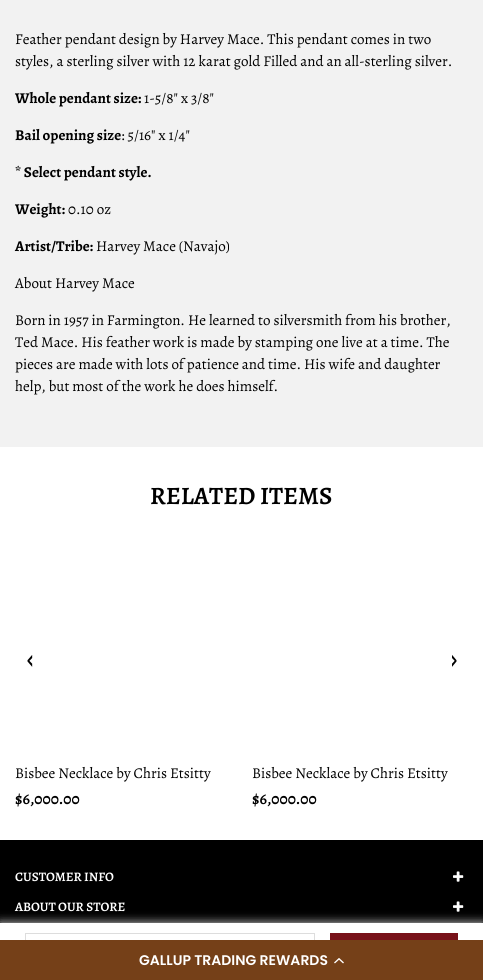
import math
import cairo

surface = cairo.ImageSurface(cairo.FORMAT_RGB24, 483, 980)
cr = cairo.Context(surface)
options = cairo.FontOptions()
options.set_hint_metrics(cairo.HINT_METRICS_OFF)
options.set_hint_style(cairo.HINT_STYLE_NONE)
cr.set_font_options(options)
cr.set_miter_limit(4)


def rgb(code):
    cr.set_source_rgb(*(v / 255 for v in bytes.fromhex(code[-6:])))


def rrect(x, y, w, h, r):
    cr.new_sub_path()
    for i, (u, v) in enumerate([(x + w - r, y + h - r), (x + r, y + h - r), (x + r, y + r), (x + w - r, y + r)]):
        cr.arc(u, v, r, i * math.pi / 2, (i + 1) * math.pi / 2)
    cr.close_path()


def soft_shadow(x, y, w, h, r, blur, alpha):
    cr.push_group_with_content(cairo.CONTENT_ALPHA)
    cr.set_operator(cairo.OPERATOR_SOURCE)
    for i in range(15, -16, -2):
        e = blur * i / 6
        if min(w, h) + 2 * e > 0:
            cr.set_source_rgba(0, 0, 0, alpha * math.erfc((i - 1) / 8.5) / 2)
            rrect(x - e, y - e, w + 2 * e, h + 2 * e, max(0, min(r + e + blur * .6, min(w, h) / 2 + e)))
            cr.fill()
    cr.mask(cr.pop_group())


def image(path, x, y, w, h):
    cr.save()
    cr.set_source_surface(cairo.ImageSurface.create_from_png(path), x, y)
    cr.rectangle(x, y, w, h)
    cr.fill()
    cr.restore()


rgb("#ffffff")
cr.paint()
rgb("#f2f2f2")
cr.rectangle(0, 0, 483, 447)
cr.fill()
image("img/1.png", 27, 655, 6, 12)
image("img/2.png", 452, 655, 5, 12)
rgb("#000000")
cr.rectangle(0, 840, 483, 83)
cr.fill()
image("img/3.png", 453, 871, 11, 11)
image("img/3.png", 453, 901, 11, 11)
rgb("#dddddd")
soft_shadow(0, 923, 483, 57, 0, 5, 1)
rgb("#ffffff")
cr.rectangle(0, 923, 483, 17)
cr.fill()
cr.rectangle(25.5, 933.5, 289, 39)
rgb("#dddddd")
cr.set_line_width(1)
cr.stroke()
rgb("#781219")
cr.rectangle(330, 933, 128, 7)
cr.fill()
rgb("#754018")
cr.rectangle(0, 940, 483, 40)
cr.fill()
image("img/4.png", 334, 958, 10, 6)
cr.select_font_face("Alegreya")
cr.set_font_size(15)
rgb("#000000")
cr.move_to(15, 44)
cr.show_text("Feather pendant design by Harvey Mace. This pendant comes in two")
cr.move_to(15, 66)
cr.show_text("styles, a sterling silver with 12 karat gold Filled and an all-sterling silver.")
cr.select_font_face("Alegreya", cairo.FONT_SLANT_NORMAL, cairo.FONT_WEIGHT_BOLD)
cr.move_to(15, 103)
cr.show_text("Whole pendant size:")
cr.select_font_face("Alegreya")
cr.move_to(144, 103)
cr.show_text("1-5/8\" x 3/8\"")
cr.select_font_face("Alegreya", cairo.FONT_SLANT_NORMAL, cairo.FONT_WEIGHT_BOLD)
cr.move_to(15, 140)
cr.show_text("Bail opening size")
cr.select_font_face("Alegreya")
cr.move_to(121, 140)
cr.show_text(": 5/16\" x 1/4\"")
cr.select_font_face("Alegreya", cairo.FONT_SLANT_NORMAL, cairo.FONT_WEIGHT_BOLD)
cr.move_to(15, 177)
cr.show_text("* Select pendant style.")
cr.move_to(15, 214)
cr.show_text("Weight:")
cr.select_font_face("Alegreya")
cr.move_to(68, 214)
cr.show_text("0.10 oz")
cr.select_font_face("Alegreya", cairo.FONT_SLANT_NORMAL, cairo.FONT_WEIGHT_BOLD)
cr.move_to(15, 251)
cr.show_text("Artist/Tribe:")
cr.select_font_face("Alegreya")
for x, y, s in [
    (96, 251, "Harvey Mace (Navajo)"),
    (15, 288, "About Harvey Mace"),
    (15, 325, "Born in 1957 in Farmington. He learned to silversmith from his brother,"),
    (15, 347, "Ted Mace. His feather work is made by stamping one live at a time. The"),
    (15, 369, "pieces are made with lots of patience and time. His wife and daughter"),
    (15, 391, "help, but most of the work he does himself."),
]:
    cr.move_to(x, y)
    cr.show_text(s)
cr.select_font_face("Alegreya SemiBold")
cr.set_font_size(25)
cr.move_to(150, 504)
cr.show_text("RELATED ITEMS")
cr.select_font_face("Alegreya")
cr.set_font_size(15)
cr.move_to(15, 778)
cr.show_text("Bisbee Necklace by Chris Etsitty")
cr.select_font_face("Alegreya SemiBold")
cr.set_font_size(16)
cr.move_to(15, 804)
cr.show_text("$6,000.00")
cr.select_font_face("Alegreya")
cr.set_font_size(15)
cr.move_to(252, 778)
cr.show_text("Bisbee Necklace by Chris Etsitty")
cr.select_font_face("Alegreya SemiBold")
cr.set_font_size(16)
cr.move_to(252, 804)
cr.show_text("$6,000.00")
cr.set_font_size(13)
rgb("#ffffff")
cr.move_to(15, 881)
cr.show_text("CUSTOMER INFO")
cr.move_to(15, 911)
cr.show_text("ABOUT OUR STORE")
cr.select_font_face("Poppins SemiBold")
cr.set_font_size(14)
cr.move_to(139, 965)
cr.show_text("GALLUP TRADING REWARDS")
surface.write_to_png("page.png")
